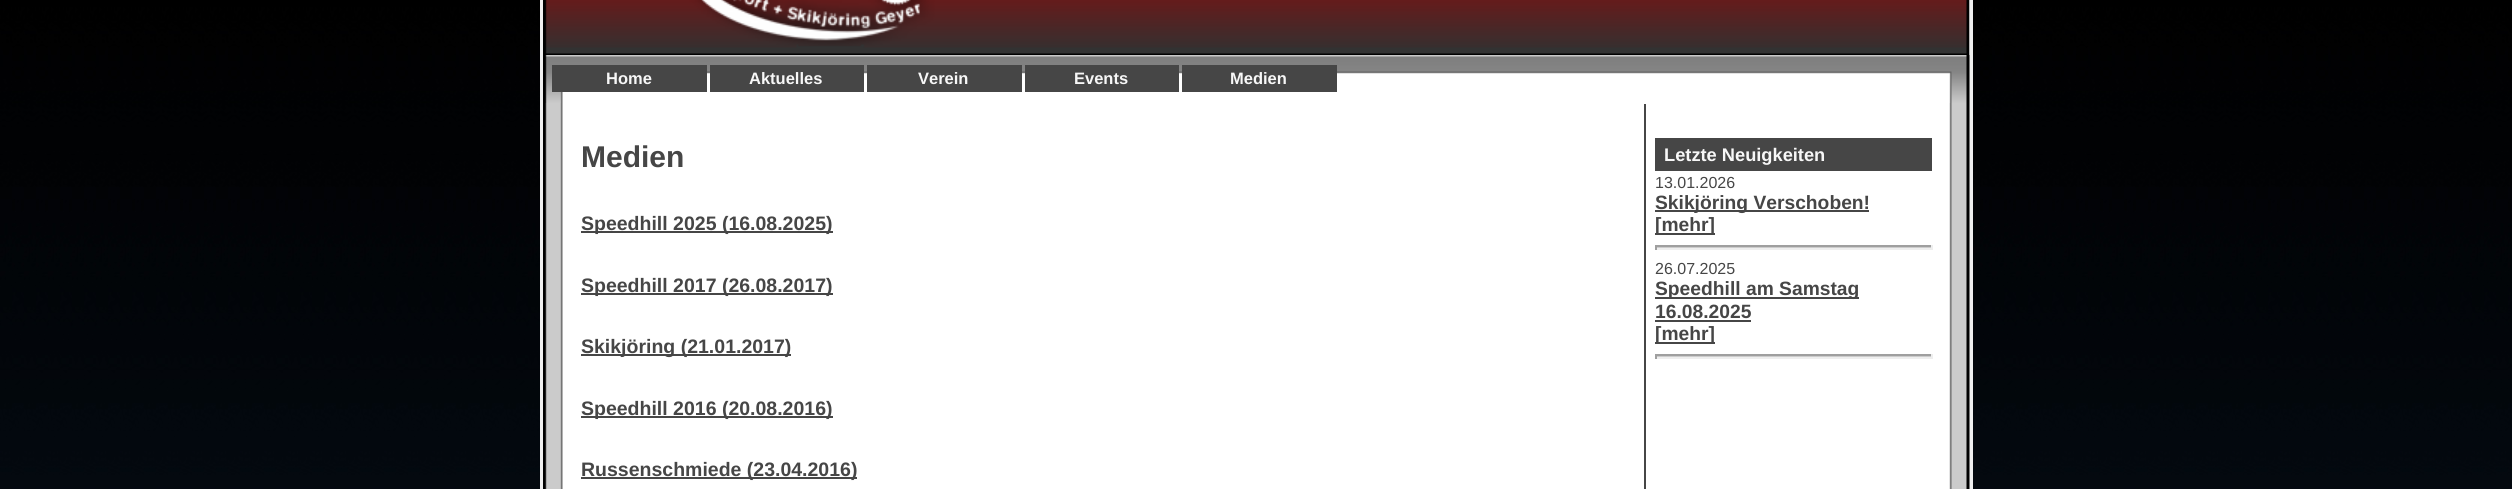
import math
import cairo

surface = cairo.ImageSurface(cairo.FORMAT_RGB24, 2512, 489)
cr = cairo.Context(surface)
options = cairo.FontOptions()
options.set_hint_metrics(cairo.HINT_METRICS_OFF)
options.set_hint_style(cairo.HINT_STYLE_NONE)
cr.set_font_options(options)
cr.set_miter_limit(4)


def rgb(code):
    cr.set_source_rgb(*(v / 255 for v in bytes.fromhex(code[-6:])))


def image(path, x, y, w, h):
    cr.save()
    cr.set_source_surface(cairo.ImageSurface.create_from_png(path), x, y)
    cr.rectangle(x, y, w, h)
    cr.fill()
    cr.restore()


rgb("#ffffff")
cr.paint()
image("img/1.png", 0, 0, 2512, 489)
rgb("#f0f0f0")
cr.rectangle(540, 0, 1433, 489)
cr.fill()
image("img/2.png", 543, 0, 1427, 55)
image("img/3.png", 543, 55, 1427, 48)
for x, y, w, h, color in [
    (552, 65, 155, 27, "#464646"),
    (710, 65, 154, 27, "#464646"),
    (867, 65, 155, 27, "#464646"),
    (1025, 65, 154, 27, "#464646"),
    (1182, 65, 155, 27, "#464646"),
]:
    rgb(color)
    cr.rectangle(x, y, w, h)
    cr.fill()
image("img/4.png", 543, 103, 1427, 386)
for x, y, w, h, color in [
    (1644, 104, 2, 385, "#464646"),
    (581, 231, 252, 2, "#464646"),
    (581, 293, 252, 2, "#464646"),
    (581, 354, 210, 2, "#464646"),
    (581, 416, 252, 2, "#464646"),
    (581, 477, 276, 2, "#464646"),
    (1655, 138, 277, 33, "#464646"),
    (1655, 210, 214, 2, "#464646"),
    (1655, 233, 60, 2, "#464646"),
    (1655, 247, 277, 1, "#cccccc"),
    (1655, 245, 277, 2, "#9f9f9f"),
    (1931, 245, 2, 5, "#eeeeee"),
    (1655, 248, 277, 2, "#eeeeee"),
    (1655, 245, 2, 5, "#9f9f9f"),
    (1655, 297, 204, 2, "#464646"),
    (1655, 320, 96, 2, "#464646"),
    (1655, 342, 60, 2, "#464646"),
    (1655, 356, 277, 1, "#cccccc"),
    (1655, 354, 277, 2, "#9f9f9f"),
    (1931, 354, 2, 5, "#eeeeee"),
    (1655, 357, 277, 2, "#eeeeee"),
    (1655, 354, 2, 5, "#9f9f9f"),
]:
    rgb(color)
    cr.rectangle(x, y, w, h)
    cr.fill()
cr.select_font_face("Liberation Sans", cairo.FONT_SLANT_NORMAL, cairo.FONT_WEIGHT_BOLD)
cr.set_font_size(16.5)
rgb("#f7f7f7")
for x, y, s in [
    (606, 84, "Home"),
    (749, 84, "Aktuelles"),
    (918, 84, "Verein"),
    (1074, 84, "Events"),
    (1230, 84, "Medien"),
]:
    cr.move_to(x, y)
    cr.show_text(s)
cr.set_font_size(30)
rgb("#464646")
cr.move_to(581, 167)
cr.show_text("Medien")
cr.set_font_size(19.5)
for x, y, s in [
    (581, 230, "Speedhill 2025 (16.08.2025)"),
    (581, 292, "Speedhill 2017 (26.08.2017)"),
    (581, 353, "Skikjöring (21.01.2017)"),
    (581, 415, "Speedhill 2016 (20.08.2016)"),
    (581, 476, "Russenschmiede (23.04.2016)"),
]:
    cr.move_to(x, y)
    cr.show_text(s)
cr.set_font_size(18.25)
rgb("#f7f7f7")
cr.move_to(1664, 161)
cr.show_text("Letzte Neuigkeiten")
cr.select_font_face("Liberation Sans")
cr.set_font_size(16)
rgb("#464646")
cr.move_to(1655, 188)
cr.show_text("13.01.2026")
cr.select_font_face("Liberation Sans", cairo.FONT_SLANT_NORMAL, cairo.FONT_WEIGHT_BOLD)
cr.set_font_size(19.25)
cr.move_to(1655, 209)
cr.show_text("Skikjöring Verschoben!")
cr.move_to(1655, 231)
cr.show_text("[mehr]")
cr.select_font_face("Liberation Sans")
cr.set_font_size(16)
cr.move_to(1655, 274)
cr.show_text("26.07.2025")
cr.select_font_face("Liberation Sans", cairo.FONT_SLANT_NORMAL, cairo.FONT_WEIGHT_BOLD)
cr.set_font_size(19.25)
for x, y, s in [
    (1655, 295, "Speedhill am Samstag"),
    (1655, 318, "16.08.2025"),
    (1655, 340, "[mehr]"),
]:
    cr.move_to(x, y)
    cr.show_text(s)
surface.write_to_png("page.png")
